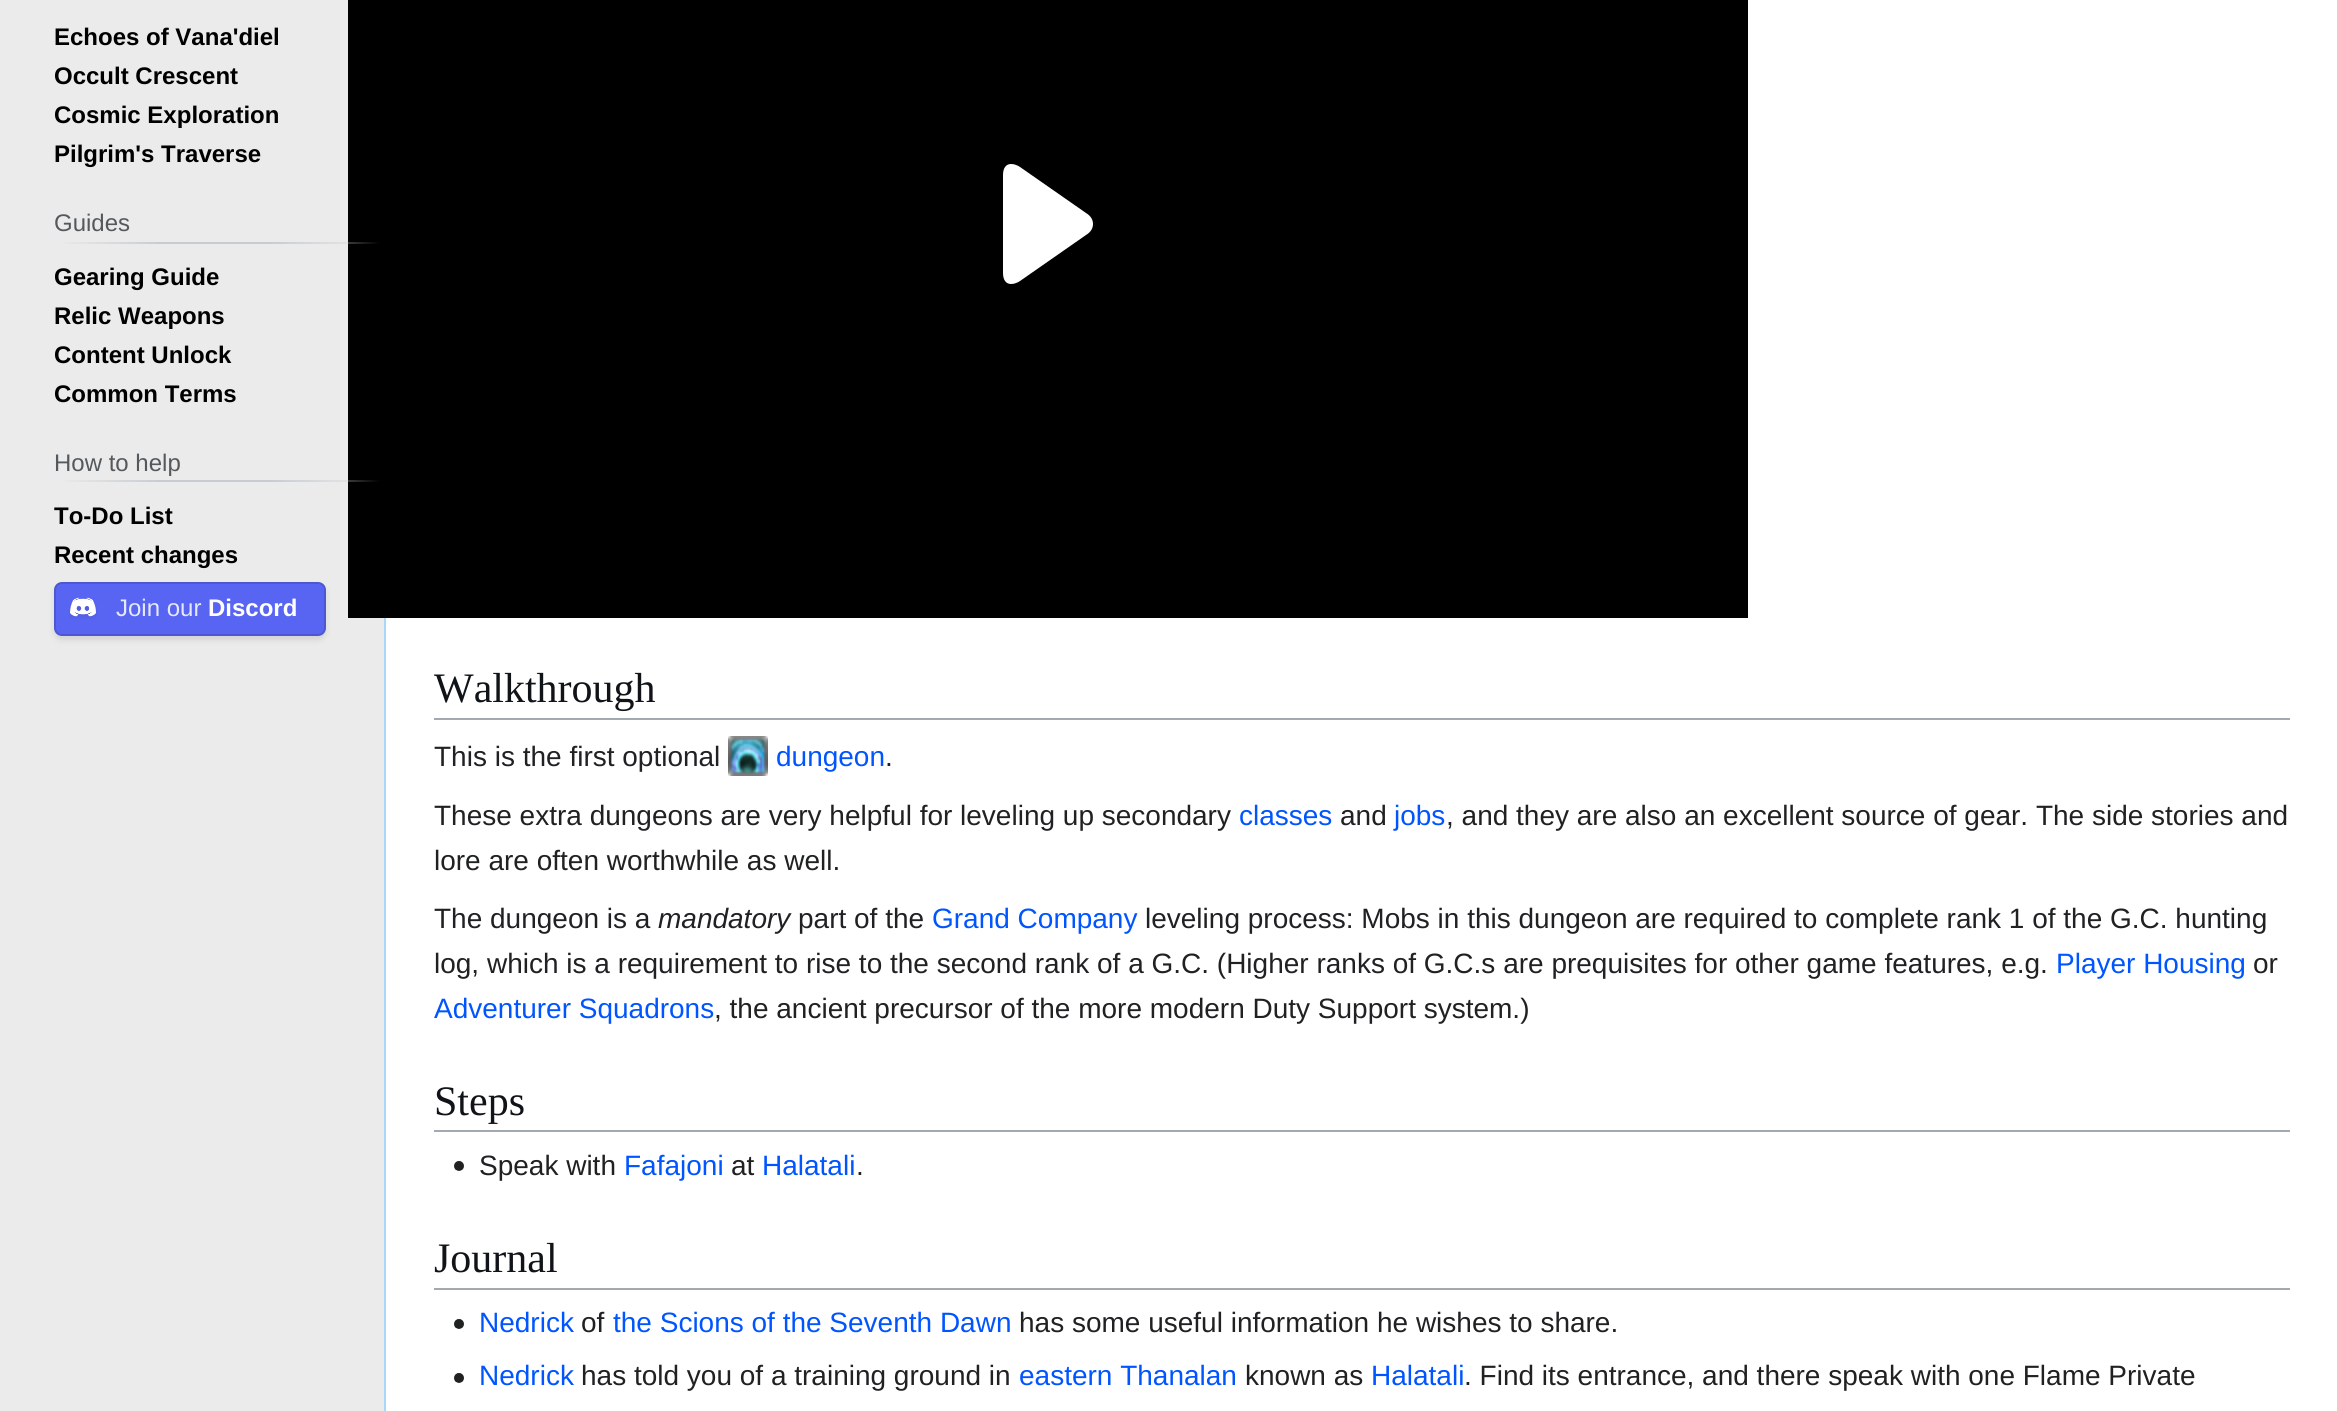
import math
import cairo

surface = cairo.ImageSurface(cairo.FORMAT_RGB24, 2337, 1411)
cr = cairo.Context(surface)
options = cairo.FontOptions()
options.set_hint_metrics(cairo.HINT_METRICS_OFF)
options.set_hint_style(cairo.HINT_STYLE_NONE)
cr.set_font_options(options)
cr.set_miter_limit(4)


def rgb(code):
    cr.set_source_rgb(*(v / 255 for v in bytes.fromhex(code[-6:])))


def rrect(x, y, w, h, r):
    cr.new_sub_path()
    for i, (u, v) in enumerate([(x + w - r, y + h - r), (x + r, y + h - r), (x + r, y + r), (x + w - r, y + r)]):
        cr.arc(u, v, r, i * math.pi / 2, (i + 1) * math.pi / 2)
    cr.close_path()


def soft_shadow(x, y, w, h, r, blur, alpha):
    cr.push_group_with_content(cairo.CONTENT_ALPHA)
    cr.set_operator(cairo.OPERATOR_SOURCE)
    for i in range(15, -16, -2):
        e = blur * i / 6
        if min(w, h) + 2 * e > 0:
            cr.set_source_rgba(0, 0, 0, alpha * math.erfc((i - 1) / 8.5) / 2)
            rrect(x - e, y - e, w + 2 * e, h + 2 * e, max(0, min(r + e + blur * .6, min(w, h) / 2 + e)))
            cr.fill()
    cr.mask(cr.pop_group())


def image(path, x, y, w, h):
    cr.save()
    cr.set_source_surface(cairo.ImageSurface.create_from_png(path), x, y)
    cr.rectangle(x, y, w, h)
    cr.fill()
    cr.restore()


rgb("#ebebeb")
cr.paint()
rgb("#ffffff")
cr.rectangle(386, 0, 1951, 1411)
cr.fill()
rgb("#000000")
cr.rectangle(348, 0, 1400, 618)
cr.fill()
gradient = cairo.LinearGradient(54, 243, 380, 243)
gradient.add_color_stop_rgba(0, 0.784, 0.8, 0.82, 0)
gradient.add_color_stop_rgba(0.33, 0.784, 0.8, 0.82, 1)
gradient.add_color_stop_rgba(0.66, 0.784, 0.8, 0.82, 1)
gradient.add_color_stop_rgba(1, 0.784, 0.8, 0.82, 0)
cr.set_source(gradient)
cr.rectangle(63, 242, 317, 2)
cr.fill()
gradient = cairo.LinearGradient(54, 481, 380, 481)
gradient.add_color_stop_rgba(0, 0.784, 0.8, 0.82, 0)
gradient.add_color_stop_rgba(0.33, 0.784, 0.8, 0.82, 1)
gradient.add_color_stop_rgba(0.66, 0.784, 0.8, 0.82, 1)
gradient.add_color_stop_rgba(1, 0.784, 0.8, 0.82, 0)
cr.set_source(gradient)
cr.rectangle(63, 480, 317, 2)
cr.fill()
rgb("#000000")
soft_shadow(54, 586, 272, 54, 8, 3, 0.1)
rgb("#5865f2")
rrect(55, 583, 270, 52, 7)
cr.fill_preserve()
rgb("#4c57d0")
cr.stroke()
image("img/1.png", 69, 597, 29, 22)
rgb("#a7d7f9")
cr.rectangle(384, 618, 2, 793)
cr.fill()
rgb("#ffffff")
cr.new_path()
cr.move_to(1086, 213)
cr.line_to(1020, 167)
cr.curve_to(1017, 165, 1014, 164, 1011, 164)
cr.curve_to(1006, 164, 1003, 168, 1003, 175)
cr.line_to(1003, 273)
cr.curve_to(1003, 280, 1006, 284, 1011, 284)
cr.curve_to(1014, 284, 1017, 283, 1020, 281)
cr.line_to(1086, 235)
cr.curve_to(1091, 232, 1093, 228, 1093, 224)
cr.curve_to(1093, 220, 1091, 216, 1086, 213)
cr.close_path()
cr.fill()
rgb("#a2a9b1")
cr.rectangle(434, 718, 1856, 2)
cr.fill()
image("img/2.png", 728, 736, 40, 40)
cr.rectangle(434, 1130, 1856, 2)
cr.fill()
image("img/3.png", 454, 1161, 10, 10)
cr.rectangle(434, 1288, 1856, 2)
cr.fill()
image("img/3.png", 454, 1319, 10, 10)
image("img/3.png", 454, 1373, 10, 10)
cr.select_font_face("Liberation Sans", cairo.FONT_SLANT_NORMAL, cairo.FONT_WEIGHT_BOLD)
cr.set_font_size(24)
rgb("#000000")
for x, y, s in [
    (54, 45, "Echoes of Vana'diel"),
    (54, 84, "Occult Crescent"),
    (54, 123, "Cosmic Exploration"),
    (54, 162, "Pilgrim's Traverse"),
]:
    cr.move_to(x, y)
    cr.show_text(s)
cr.select_font_face("Liberation Sans")
rgb("#54595d")
cr.move_to(54, 231)
cr.show_text("Guides")
cr.select_font_face("Liberation Sans", cairo.FONT_SLANT_NORMAL, cairo.FONT_WEIGHT_BOLD)
rgb("#000000")
for x, y, s in [
    (54, 285, "Gearing Guide"),
    (54, 324, "Relic Weapons"),
    (54, 363, "Content Unlock"),
    (54, 402, "Common Terms"),
]:
    cr.move_to(x, y)
    cr.show_text(s)
cr.select_font_face("Liberation Sans")
rgb("#54595d")
cr.move_to(54, 471)
cr.show_text("How to help")
cr.select_font_face("Liberation Sans", cairo.FONT_SLANT_NORMAL, cairo.FONT_WEIGHT_BOLD)
rgb("#000000")
cr.move_to(54, 524)
cr.show_text("To-Do List")
cr.move_to(54, 563)
cr.show_text("Recent changes")
cr.select_font_face("Liberation Sans")
rgb("#e6e8fd")
cr.move_to(116, 616)
cr.show_text("Join our")
cr.select_font_face("Liberation Sans", cairo.FONT_SLANT_NORMAL, cairo.FONT_WEIGHT_BOLD)
rgb("#ffffff")
cr.move_to(208, 616)
cr.show_text("Discord")
cr.select_font_face("Liberation Serif")
cr.set_font_size(42)
rgb("#101418")
cr.move_to(434, 702)
cr.show_text("Walkthrough")
cr.select_font_face("Liberation Sans")
cr.set_font_size(28)
rgb("#202122")
cr.move_to(434, 766)
cr.show_text("This is the first optional")
rgb("#0055ff")
cr.move_to(776, 766)
cr.show_text("dungeon")
rgb("#202122")
cr.move_to(885, 766)
cr.show_text(".")
cr.move_to(434, 825)
cr.show_text("These extra dungeons are very helpful for leveling up secondary")
rgb("#0055ff")
cr.move_to(1239, 825)
cr.show_text("classes")
rgb("#202122")
cr.move_to(1340, 825)
cr.show_text("and")
rgb("#0055ff")
cr.move_to(1394, 825)
cr.show_text("jobs")
rgb("#202122")
for x, y, s in [
    (1446, 825, ", and they are also an excellent source of gear. The side stories and"),
    (434, 870, "lore are often worthwhile as well."),
    (434, 928, "The dungeon is a"),
]:
    cr.move_to(x, y)
    cr.show_text(s)
cr.select_font_face("Liberation Sans", cairo.FONT_SLANT_ITALIC)
cr.move_to(658, 928)
cr.show_text("mandatory")
cr.select_font_face("Liberation Sans")
cr.move_to(798, 928)
cr.show_text("part of the")
rgb("#0055ff")
cr.move_to(932, 928)
cr.show_text("Grand Company")
rgb("#202122")
cr.move_to(1145, 928)
cr.show_text("leveling process: Mobs in this dungeon are required to complete rank 1 of the G.C. hunting")
cr.move_to(434, 973)
cr.show_text("log, which is a requirement to rise to the second rank of a G.C. (Higher ranks of G.C.s are prequisites for other game features, e.g.")
rgb("#0055ff")
cr.move_to(2056, 973)
cr.show_text("Player Housing")
rgb("#202122")
cr.move_to(2253, 973)
cr.show_text("or")
rgb("#0055ff")
cr.move_to(434, 1018)
cr.show_text("Adventurer Squadrons")
rgb("#202122")
cr.move_to(714, 1018)
cr.show_text(", the ancient precursor of the more modern Duty Support system.)")
cr.select_font_face("Liberation Serif")
cr.set_font_size(42)
rgb("#101418")
cr.move_to(434, 1115)
cr.show_text("Steps")
cr.select_font_face("Liberation Sans")
cr.set_font_size(28)
rgb("#202122")
cr.move_to(479, 1175)
cr.show_text("Speak with")
rgb("#0055ff")
cr.move_to(624, 1175)
cr.show_text("Fafajoni")
rgb("#202122")
cr.move_to(731, 1175)
cr.show_text("at")
rgb("#0055ff")
cr.move_to(762, 1175)
cr.show_text("Halatali")
rgb("#202122")
cr.move_to(856, 1175)
cr.show_text(".")
cr.select_font_face("Liberation Serif")
cr.set_font_size(42)
rgb("#101418")
cr.move_to(434, 1272)
cr.show_text("Journal")
cr.select_font_face("Liberation Sans")
cr.set_font_size(28)
rgb("#0055ff")
cr.move_to(479, 1332)
cr.show_text("Nedrick")
rgb("#202122")
cr.move_to(581, 1332)
cr.show_text("of")
rgb("#0055ff")
cr.move_to(613, 1332)
cr.show_text("the Scions of the Seventh Dawn")
rgb("#202122")
cr.move_to(1019, 1332)
cr.show_text("has some useful information he wishes to share.")
rgb("#0055ff")
cr.move_to(479, 1385)
cr.show_text("Nedrick")
rgb("#202122")
cr.move_to(581, 1385)
cr.show_text("has told you of a training ground in")
rgb("#0055ff")
cr.move_to(1019, 1385)
cr.show_text("eastern Thanalan")
rgb("#202122")
cr.move_to(1245, 1385)
cr.show_text("known as")
rgb("#0055ff")
cr.move_to(1371, 1385)
cr.show_text("Halatali")
rgb("#202122")
cr.move_to(1464, 1385)
cr.show_text(". Find its entrance, and there speak with one Flame Private")
surface.write_to_png("page.png")
